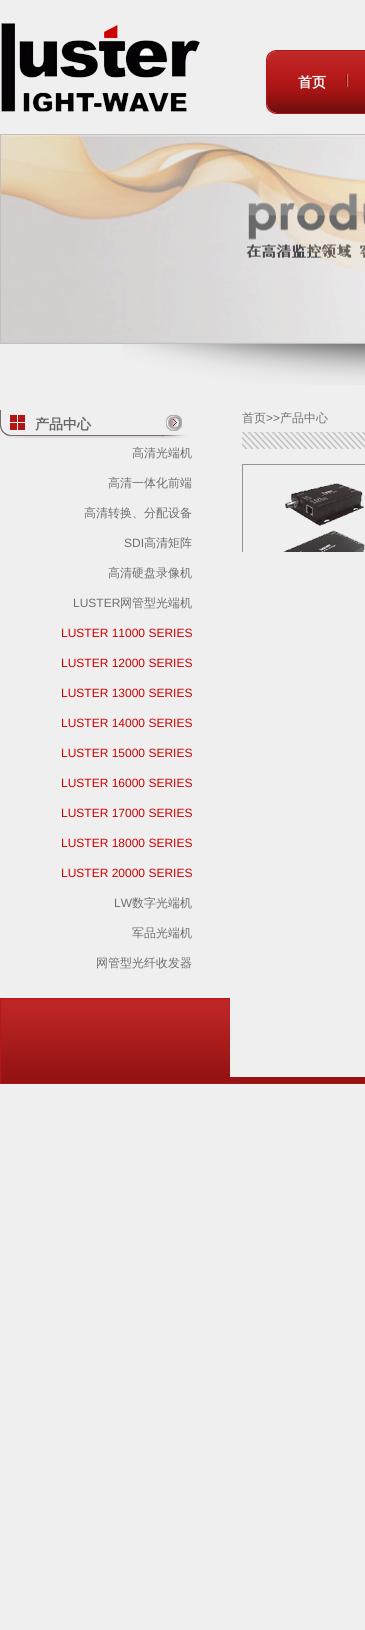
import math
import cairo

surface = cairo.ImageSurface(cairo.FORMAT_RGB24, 365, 1630)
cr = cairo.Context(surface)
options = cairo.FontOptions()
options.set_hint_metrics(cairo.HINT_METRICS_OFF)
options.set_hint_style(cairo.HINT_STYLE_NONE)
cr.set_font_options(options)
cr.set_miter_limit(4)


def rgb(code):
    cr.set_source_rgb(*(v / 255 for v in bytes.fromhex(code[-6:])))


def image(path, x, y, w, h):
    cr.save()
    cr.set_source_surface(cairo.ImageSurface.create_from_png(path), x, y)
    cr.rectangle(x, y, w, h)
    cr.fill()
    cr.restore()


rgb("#efefef")
cr.paint()
image("img/1.png", 1, 23, 199, 89)
image("img/2.png", 266, 50, 12, 64)
image("img/3.png", 278, 50, 68, 64)
image("img/4.png", 346, 50, 2, 64)
image("img/5.png", 348, 50, 17, 64)
cr.rectangle(0.5, 134.5, 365, 209)
rgb("#c0c0c0")
cr.set_line_width(1)
cr.stroke()
image("img/6.png", 1, 135, 364, 208)
image("img/7.png", 122, 344, 243, 41)
image("img/8.png", 0, 410, 188, 28)
image("img/9.png", 10, 415, 15, 15)
image("img/10.png", 166, 415, 16, 16)
image("img/11.png", 242, 432, 123, 17)
image("img/12.png", 242, 464, 123, 88)
image("img/13.png", 1, 999, 364, 84)
cr.rectangle(0.5, 998.5, 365, 85)
rgb("#b71616")
cr.stroke()
rgb("#efefef")
cr.rectangle(230, 998, 135, 79)
cr.fill()
cr.select_font_face("WenQuanYi Zen Hei", cairo.FONT_SLANT_NORMAL, cairo.FONT_WEIGHT_BOLD)
cr.set_font_size(14)
rgb("#ffffff")
cr.move_to(298, 87)
cr.show_text("首页")
rgb("#686868")
cr.move_to(35, 429)
cr.show_text("产品中心")
cr.select_font_face("WenQuanYi Zen Hei Medium")
cr.set_font_size(12)
rgb("#6f6f6f")
for x, y, s in [
    (132, 457, "高清光端机"),
    (108, 487, "高清一体化前端"),
    (84, 517, "高清转换、分配设备"),
]:
    cr.move_to(x, y)
    cr.show_text(s)
cr.select_font_face("Liberation Sans")
cr.move_to(124, 547)
cr.show_text("SDI")
cr.select_font_face("WenQuanYi Zen Hei Medium")
cr.move_to(144, 547)
cr.show_text("高清矩阵")
cr.move_to(108, 577)
cr.show_text("高清硬盘录像机")
cr.select_font_face("Liberation Sans")
cr.move_to(73, 607)
cr.show_text("LUSTER")
cr.select_font_face("WenQuanYi Zen Hei Medium")
cr.move_to(120, 607)
cr.show_text("网管型光端机")
cr.select_font_face("Liberation Sans")
rgb("#cc0000")
for x, y, s in [
    (61, 637, "LUSTER 11000 SERIES"),
    (61, 667, "LUSTER 12000 SERIES"),
    (61, 697, "LUSTER 13000 SERIES"),
    (61, 727, "LUSTER 14000 SERIES"),
    (61, 757, "LUSTER 15000 SERIES"),
    (61, 787, "LUSTER 16000 SERIES"),
    (61, 817, "LUSTER 17000 SERIES"),
    (61, 847, "LUSTER 18000 SERIES"),
    (61, 877, "LUSTER 20000 SERIES"),
]:
    cr.move_to(x, y)
    cr.show_text(s)
rgb("#6f6f6f")
cr.move_to(114, 907)
cr.show_text("LW")
cr.select_font_face("WenQuanYi Zen Hei Medium")
for x, y, s in [
    (132, 907, "数字光端机"),
    (132, 937, "军品光端机"),
    (96, 967, "网管型光纤收发器"),
    (242, 422, "首页"),
]:
    cr.move_to(x, y)
    cr.show_text(s)
cr.select_font_face("Liberation Sans")
cr.move_to(266, 422)
cr.show_text(">>")
cr.select_font_face("WenQuanYi Zen Hei Medium")
cr.move_to(280, 422)
cr.show_text("产品中心")
surface.write_to_png("page.png")
